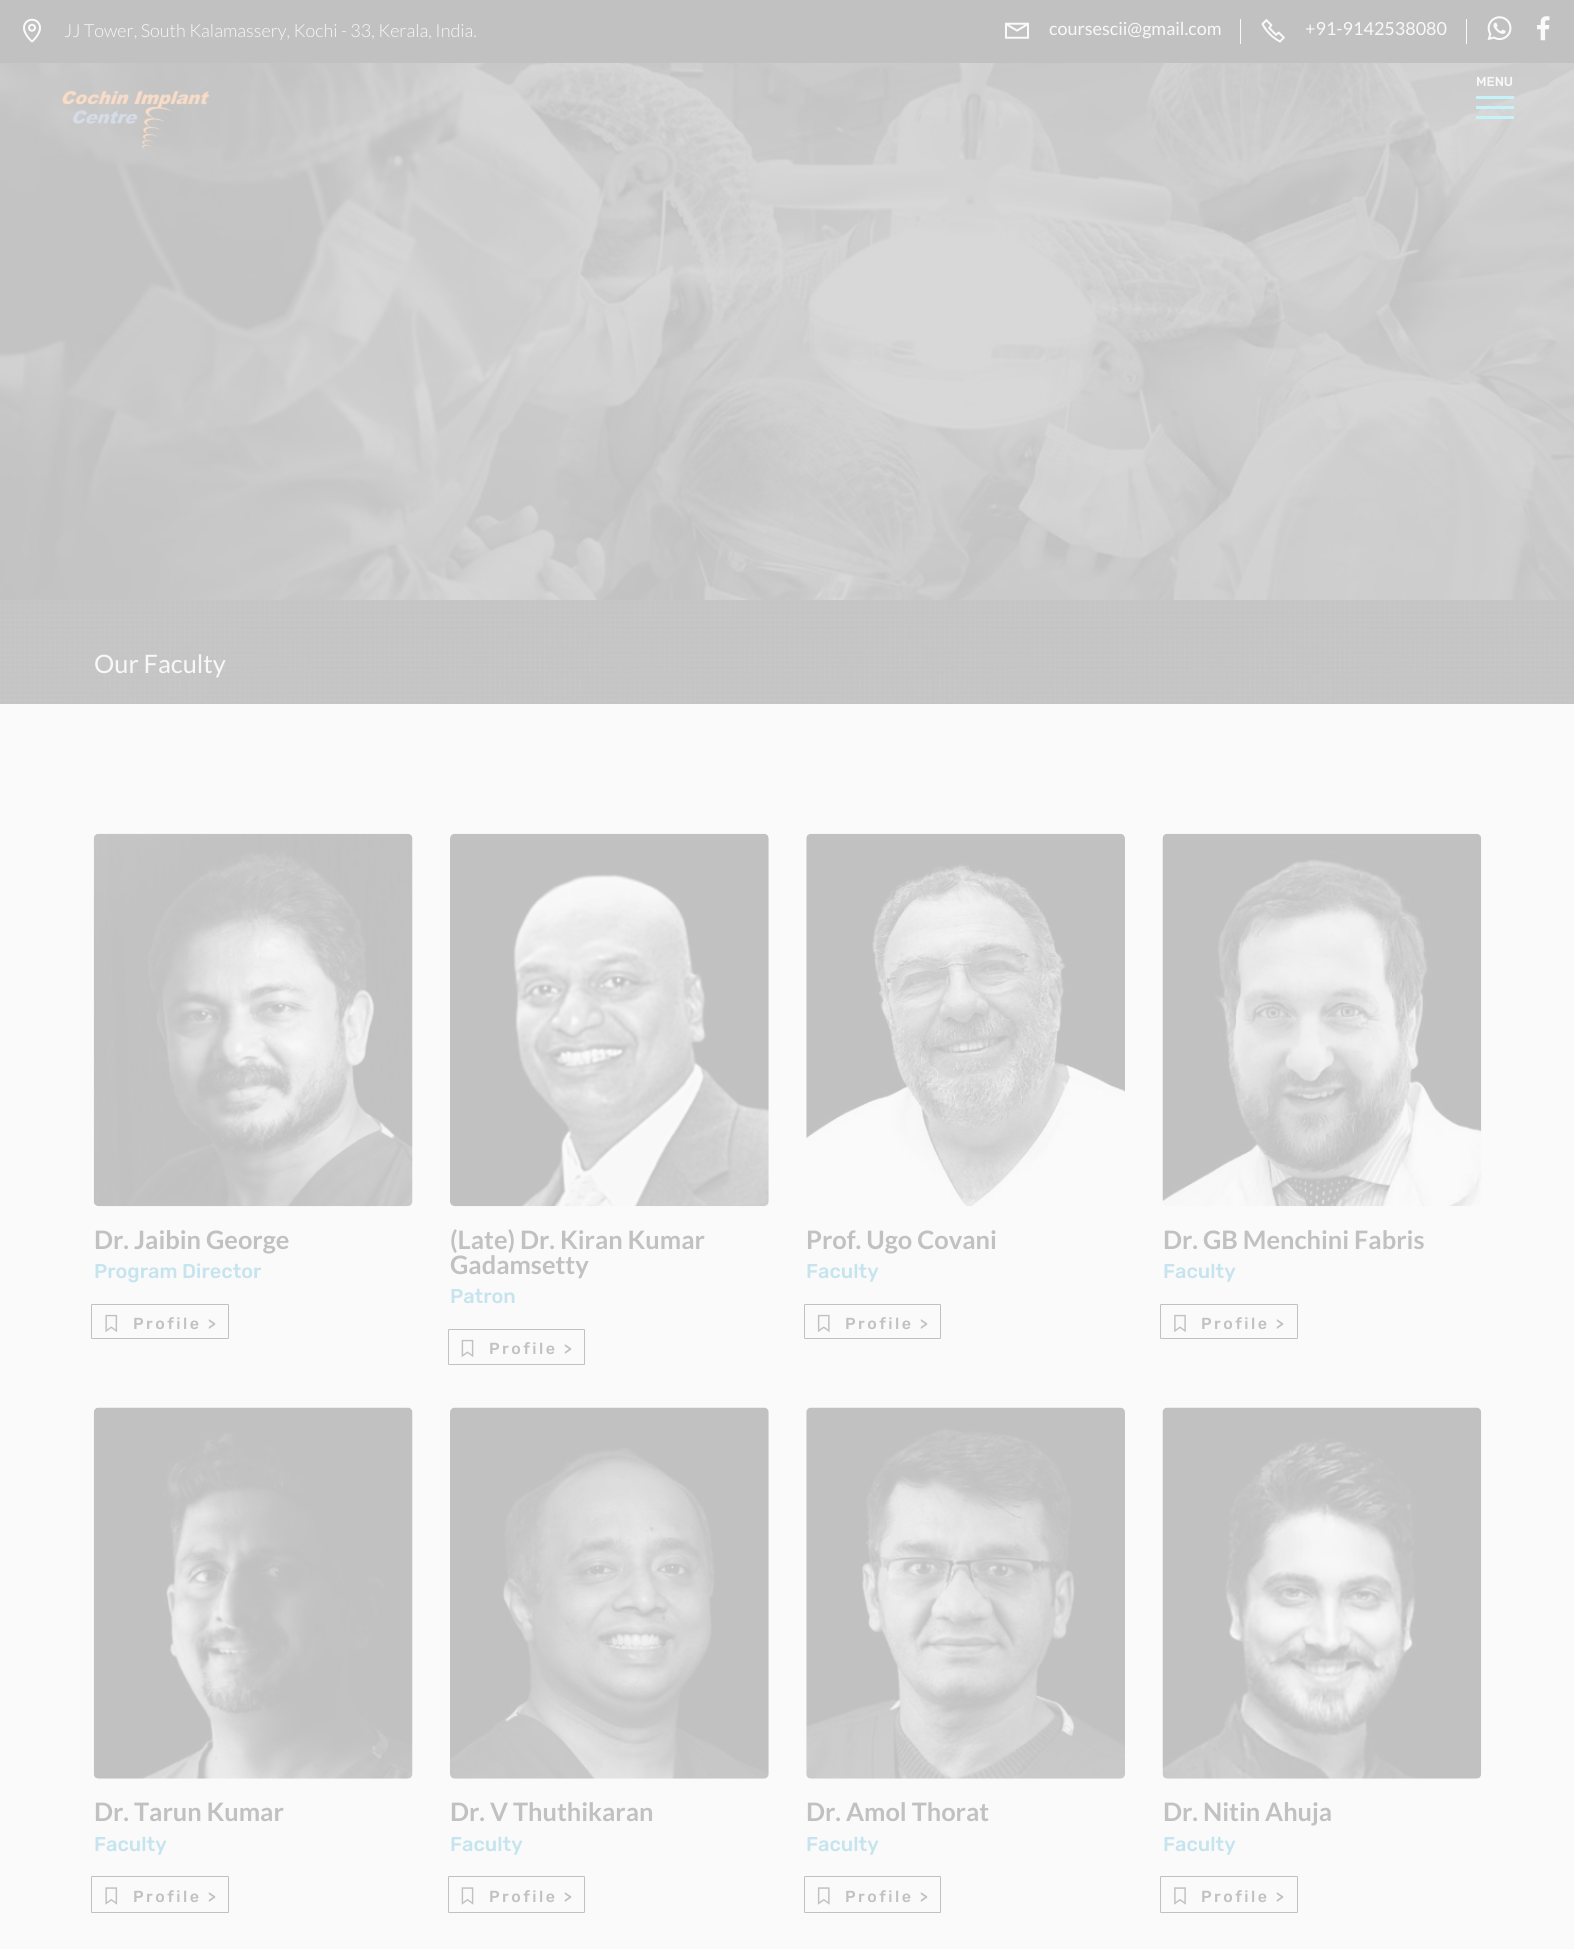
import math
import cairo

surface = cairo.ImageSurface(cairo.FORMAT_RGB24, 1574, 1949)
cr = cairo.Context(surface)
options = cairo.FontOptions()
options.set_hint_metrics(cairo.HINT_METRICS_OFF)
options.set_hint_style(cairo.HINT_STYLE_NONE)
cr.set_font_options(options)
cr.set_miter_limit(4)


def rgb(code):
    cr.set_source_rgb(*(v / 255 for v in bytes.fromhex(code[-6:])))


def tracked(x, y, s, letter, word):
    cr.move_to(x, y)
    for ch in s:
        cr.show_text(ch)
        cr.rel_move_to(letter + word * (ch == ' '), 0)


def rrect(x, y, w, h, r):
    cr.new_sub_path()
    for i, (u, v) in enumerate([(x + w - r, y + h - r), (x + r, y + h - r), (x + r, y + r), (x + w - r, y + r)]):
        cr.arc(u, v, r, i * math.pi / 2, (i + 1) * math.pi / 2)
    cr.close_path()


def image(path, x, y, w, h):
    cr.save()
    cr.set_source_surface(cairo.ImageSurface.create_from_png(path), x, y)
    cr.rectangle(x, y, w, h)
    cr.fill()
    cr.restore()


rgb("#ffffff")
cr.paint()
rgb("#c1c1c1")
cr.rectangle(0, 0, 1574, 63)
cr.fill()
image("img/1.png", 23, 18, 18, 25)
image("img/2.png", 1005, 22, 24, 17)
rgb("#fafafa")
cr.rectangle(1240, 19, 1, 25)
cr.fill()
image("img/3.png", 1261, 18, 25, 25)
cr.rectangle(1466, 19, 1, 25)
cr.fill()
image("img/4.png", 1487, 16, 25, 25)
image("img/5.png", 1537, 16, 13, 25)
image("img/7.png", 0, 63, 1574, 537)
for x, y, w, h, color in [
    (1476, 96, 38, 3, "#c6f3f9"),
    (1476, 106, 38, 3, "#c6f3f9"),
    (1476, 116, 38, 3, "#c6f3f9"),
]:
    rgb(color)
    cr.rectangle(x, y, w, h)
    cr.fill()
image("img/6.png", 62, 90, 148, 59)
rgb("#c4c4c4")
cr.rectangle(0, 600, 1574, 104)
cr.fill()
image("img/8.png", 0, 600, 1574, 104)
rgb("#fafafa")
cr.rectangle(0, 704, 1574, 1245)
cr.fill()
image("img/9.png", 93, 833, 320, 374)
rrect(91.5, 1304.5, 137, 34, 0.5)
rgb("#c1c1c1")
cr.set_line_width(1)
cr.stroke()
image("img/10.png", 105, 1314, 13, 19)
image("img/11.png", 450, 833, 319, 374)
rrect(448.5, 1329.5, 136, 35, 0.5)
cr.stroke()
image("img/12.png", 461, 1339, 13, 19)
image("img/13.png", 806, 833, 319, 374)
rrect(804.5, 1304.5, 136, 34, 0.5)
cr.stroke()
image("img/14.png", 817, 1314, 13, 19)
image("img/15.png", 1162, 833, 320, 374)
rrect(1160.5, 1304.5, 137, 34, 0.5)
cr.stroke()
image("img/16.png", 1174, 1314, 12, 19)
image("img/17.png", 93, 1407, 320, 372)
rrect(91.5, 1876.5, 137, 36, 0.5)
cr.stroke()
image("img/18.png", 105, 1887, 13, 18)
image("img/19.png", 450, 1407, 319, 372)
rrect(448.5, 1876.5, 136, 36, 0.5)
cr.stroke()
image("img/20.png", 461, 1887, 13, 18)
image("img/21.png", 806, 1407, 319, 372)
rrect(804.5, 1876.5, 136, 36, 0.5)
cr.stroke()
image("img/22.png", 817, 1887, 13, 18)
image("img/23.png", 1162, 1407, 320, 372)
rrect(1160.5, 1876.5, 137, 36, 0.5)
cr.stroke()
image("img/24.png", 1174, 1887, 12, 18)
cr.select_font_face("Lato Light")
cr.set_font_size(18)
rgb("#f8f8f8")
cr.move_to(64, 37)
cr.show_text("JJ Tower, South Kalamassery, Kochi - 33, Kerala, India.")
cr.select_font_face("Lato")
cr.move_to(1049, 35)
cr.show_text("coursescii@gmail.com")
cr.move_to(1305, 35)
cr.show_text("+91-9142538080")
cr.select_font_face("Rubik Medium")
cr.set_font_size(13)
cr.move_to(1476, 86)
cr.show_text("MENU")
cr.select_font_face("Lato")
cr.set_font_size(25.4)
cr.move_to(94, 673)
cr.show_text("Our Faculty")
cr.select_font_face("Lato", cairo.FONT_SLANT_NORMAL, cairo.FONT_WEIGHT_BOLD)
rgb("#c1c1c1")
cr.move_to(94, 1249)
cr.show_text("Dr. Jaibin George")
cr.select_font_face("Rubik Medium")
cr.set_font_size(20)
rgb("#c6e4ee")
cr.move_to(94, 1278)
cr.show_text("Program Director")
cr.set_font_size(16)
rgb("#c1c1c1")
tracked(133, 1329, "Profile >", 2.5, 0)
cr.select_font_face("Lato", cairo.FONT_SLANT_NORMAL, cairo.FONT_WEIGHT_BOLD)
cr.set_font_size(25.4)
cr.move_to(450, 1249)
cr.show_text("(Late) Dr. Kiran Kumar")
cr.move_to(450, 1274)
cr.show_text("Gadamsetty")
cr.select_font_face("Rubik Medium")
cr.set_font_size(20)
rgb("#c6e4ee")
cr.move_to(450, 1303)
cr.show_text("Patron")
cr.set_font_size(16)
rgb("#c1c1c1")
tracked(489, 1354, "Profile >", 2.5, 0)
cr.select_font_face("Lato", cairo.FONT_SLANT_NORMAL, cairo.FONT_WEIGHT_BOLD)
cr.set_font_size(25.4)
cr.move_to(806, 1249)
cr.show_text("Prof. Ugo Covani")
cr.select_font_face("Rubik Medium")
cr.set_font_size(20)
rgb("#c6e4ee")
cr.move_to(806, 1278)
cr.show_text("Faculty")
cr.set_font_size(16)
rgb("#c1c1c1")
tracked(845, 1329, "Profile >", 2.5, 0)
cr.select_font_face("Lato", cairo.FONT_SLANT_NORMAL, cairo.FONT_WEIGHT_BOLD)
cr.set_font_size(25.4)
cr.move_to(1163, 1249)
cr.show_text("Dr. GB Menchini Fabris")
cr.select_font_face("Rubik Medium")
cr.set_font_size(20)
rgb("#c6e4ee")
cr.move_to(1163, 1278)
cr.show_text("Faculty")
cr.set_font_size(16)
rgb("#c1c1c1")
tracked(1201, 1329, "Profile >", 2.5, 0)
cr.select_font_face("Lato", cairo.FONT_SLANT_NORMAL, cairo.FONT_WEIGHT_BOLD)
cr.set_font_size(25.4)
cr.move_to(94, 1821)
cr.show_text("Dr. Tarun Kumar")
cr.select_font_face("Rubik Medium")
cr.set_font_size(20)
rgb("#c6e4ee")
cr.move_to(94, 1851)
cr.show_text("Faculty")
cr.set_font_size(16)
rgb("#c1c1c1")
tracked(133, 1902, "Profile >", 2.5, 0)
cr.select_font_face("Lato", cairo.FONT_SLANT_NORMAL, cairo.FONT_WEIGHT_BOLD)
cr.set_font_size(25.4)
cr.move_to(450, 1821)
cr.show_text("Dr. V Thuthikaran")
cr.select_font_face("Rubik Medium")
cr.set_font_size(20)
rgb("#c6e4ee")
cr.move_to(450, 1851)
cr.show_text("Faculty")
cr.set_font_size(16)
rgb("#c1c1c1")
tracked(489, 1902, "Profile >", 2.5, 0)
cr.select_font_face("Lato", cairo.FONT_SLANT_NORMAL, cairo.FONT_WEIGHT_BOLD)
cr.set_font_size(25.4)
cr.move_to(806, 1821)
cr.show_text("Dr. Amol Thorat")
cr.select_font_face("Rubik Medium")
cr.set_font_size(20)
rgb("#c6e4ee")
cr.move_to(806, 1851)
cr.show_text("Faculty")
cr.set_font_size(16)
rgb("#c1c1c1")
tracked(845, 1902, "Profile >", 2.5, 0)
cr.select_font_face("Lato", cairo.FONT_SLANT_NORMAL, cairo.FONT_WEIGHT_BOLD)
cr.set_font_size(25.4)
cr.move_to(1163, 1821)
cr.show_text("Dr. Nitin Ahuja")
cr.select_font_face("Rubik Medium")
cr.set_font_size(20)
rgb("#c6e4ee")
cr.move_to(1163, 1851)
cr.show_text("Faculty")
cr.set_font_size(16)
rgb("#c1c1c1")
tracked(1201, 1902, "Profile >", 2.5, 0)
surface.write_to_png("page.png")
